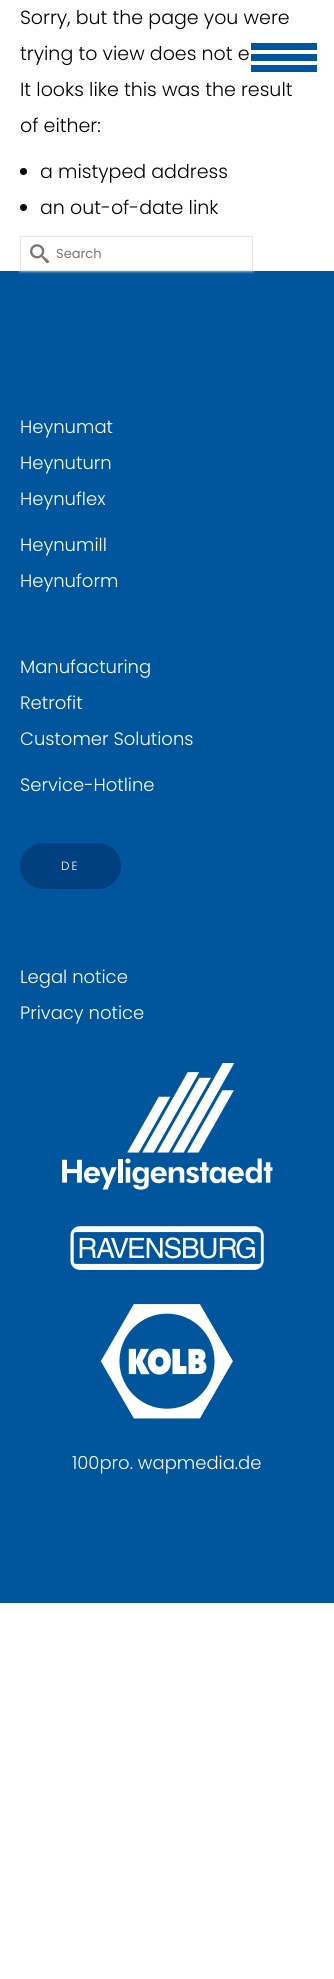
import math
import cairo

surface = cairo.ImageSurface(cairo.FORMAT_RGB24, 334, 1979)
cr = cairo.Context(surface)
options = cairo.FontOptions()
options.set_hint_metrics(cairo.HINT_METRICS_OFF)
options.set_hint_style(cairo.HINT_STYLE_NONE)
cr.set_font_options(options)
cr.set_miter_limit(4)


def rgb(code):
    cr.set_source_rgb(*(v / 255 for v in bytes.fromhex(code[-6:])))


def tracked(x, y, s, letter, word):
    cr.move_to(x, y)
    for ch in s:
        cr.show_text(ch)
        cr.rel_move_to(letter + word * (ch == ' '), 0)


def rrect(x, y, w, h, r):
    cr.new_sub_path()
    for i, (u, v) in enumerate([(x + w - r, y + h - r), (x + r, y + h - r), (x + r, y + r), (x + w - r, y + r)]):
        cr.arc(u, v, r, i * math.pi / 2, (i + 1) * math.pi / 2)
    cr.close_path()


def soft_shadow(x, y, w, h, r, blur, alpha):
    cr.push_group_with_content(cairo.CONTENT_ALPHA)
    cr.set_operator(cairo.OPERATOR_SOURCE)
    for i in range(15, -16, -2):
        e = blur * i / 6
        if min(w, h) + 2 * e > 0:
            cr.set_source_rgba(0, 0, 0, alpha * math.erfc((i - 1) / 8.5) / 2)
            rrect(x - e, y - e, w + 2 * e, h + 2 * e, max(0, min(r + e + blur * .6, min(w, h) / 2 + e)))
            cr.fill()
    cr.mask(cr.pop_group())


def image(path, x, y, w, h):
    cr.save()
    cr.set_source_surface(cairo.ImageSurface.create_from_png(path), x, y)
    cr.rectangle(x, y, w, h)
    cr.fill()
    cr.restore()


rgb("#ffffff")
cr.paint()
rgb("#000000")
cr.arc(23.5, 171.5, 3.5, 0, 2 * math.pi)
cr.fill()
cr.arc(23.5, 207.5, 3.5, 0, 2 * math.pi)
cr.fill()
rgb("#00569d")
cr.rectangle(0, 271, 334, 1332)
cr.fill()
cr.save()
cr.set_fill_rule(cairo.FILL_RULE_EVEN_ODD)
cr.new_path()
cr.move_to(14, 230)
cr.line_to(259, 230)
cr.line_to(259, 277)
cr.line_to(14, 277)
cr.close_path()
cr.move_to(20, 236)
cr.line_to(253, 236)
cr.line_to(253, 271)
cr.line_to(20, 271)
cr.close_path()
cr.clip()
rgb("#ffffff")
soft_shadow(20, 236, 233, 35, 0, 1.5, 1)
cr.restore()
cr.rectangle(20.5, 236.5, 232, 34)
rgb("#e7e7e7")
cr.set_line_width(1)
cr.stroke()
image("img/1.png", 30, 244, 19, 20)
rgb("#004080")
rrect(20.5, 843.5, 100, 45, 22.5)
cr.fill_preserve()
cr.stroke()
image("img/2.png", 62, 1063, 211, 127)
image("img/3.png", 70, 1226, 194, 44)
image("img/4.png", 100, 1304, 133, 115)
for x, y, w, h, color in [
    (251, 54, 66, 7, "#00569d"),
    (251, 43, 66, 7, "#00569d"),
    (251, 65, 66, 7, "#00569d"),
]:
    rgb(color)
    cr.rectangle(x, y, w, h)
    cr.fill()
cr.select_font_face("Poppins Light")
cr.set_font_size(19)
rgb("#000000")
for x, y, s in [
    (20, 24, "Sorry, but the page you were"),
    (20, 60, "trying to view does not e"),
    (20, 96, "It looks like this was the result"),
    (20, 132, "of either:"),
    (40, 178, "a mistyped address"),
    (40, 214, "an out-of-date link"),
]:
    cr.move_to(x, y)
    cr.show_text(s)
cr.select_font_face("Poppins")
cr.set_font_size(13)
rgb("#757575")
cr.move_to(56, 258)
cr.show_text("Search")
cr.select_font_face("Poppins Light")
cr.set_font_size(18)
rgb("#ffffff")
for x, y, s in [
    (20, 433, "Heynumat"),
    (20, 469, "Heynuturn"),
    (20, 505, "Heynuflex"),
    (20, 551, "Heynumill"),
    (20, 587, "Heynuform"),
    (20, 673, "Manufacturing"),
    (20, 709, "Retrofit"),
    (20, 745, "Customer Solutions"),
    (20, 791, "Service-Hotline"),
]:
    cr.move_to(x, y)
    cr.show_text(s)
cr.set_font_size(12)
tracked(61, 870, "DE", 2, 0)
cr.set_font_size(18)
for x, y, s in [
    (20, 983, "Legal notice"),
    (20, 1019, "Privacy notice"),
    (72, 1469, "100pro. wapmedia.de"),
]:
    cr.move_to(x, y)
    cr.show_text(s)
surface.write_to_png("page.png")
